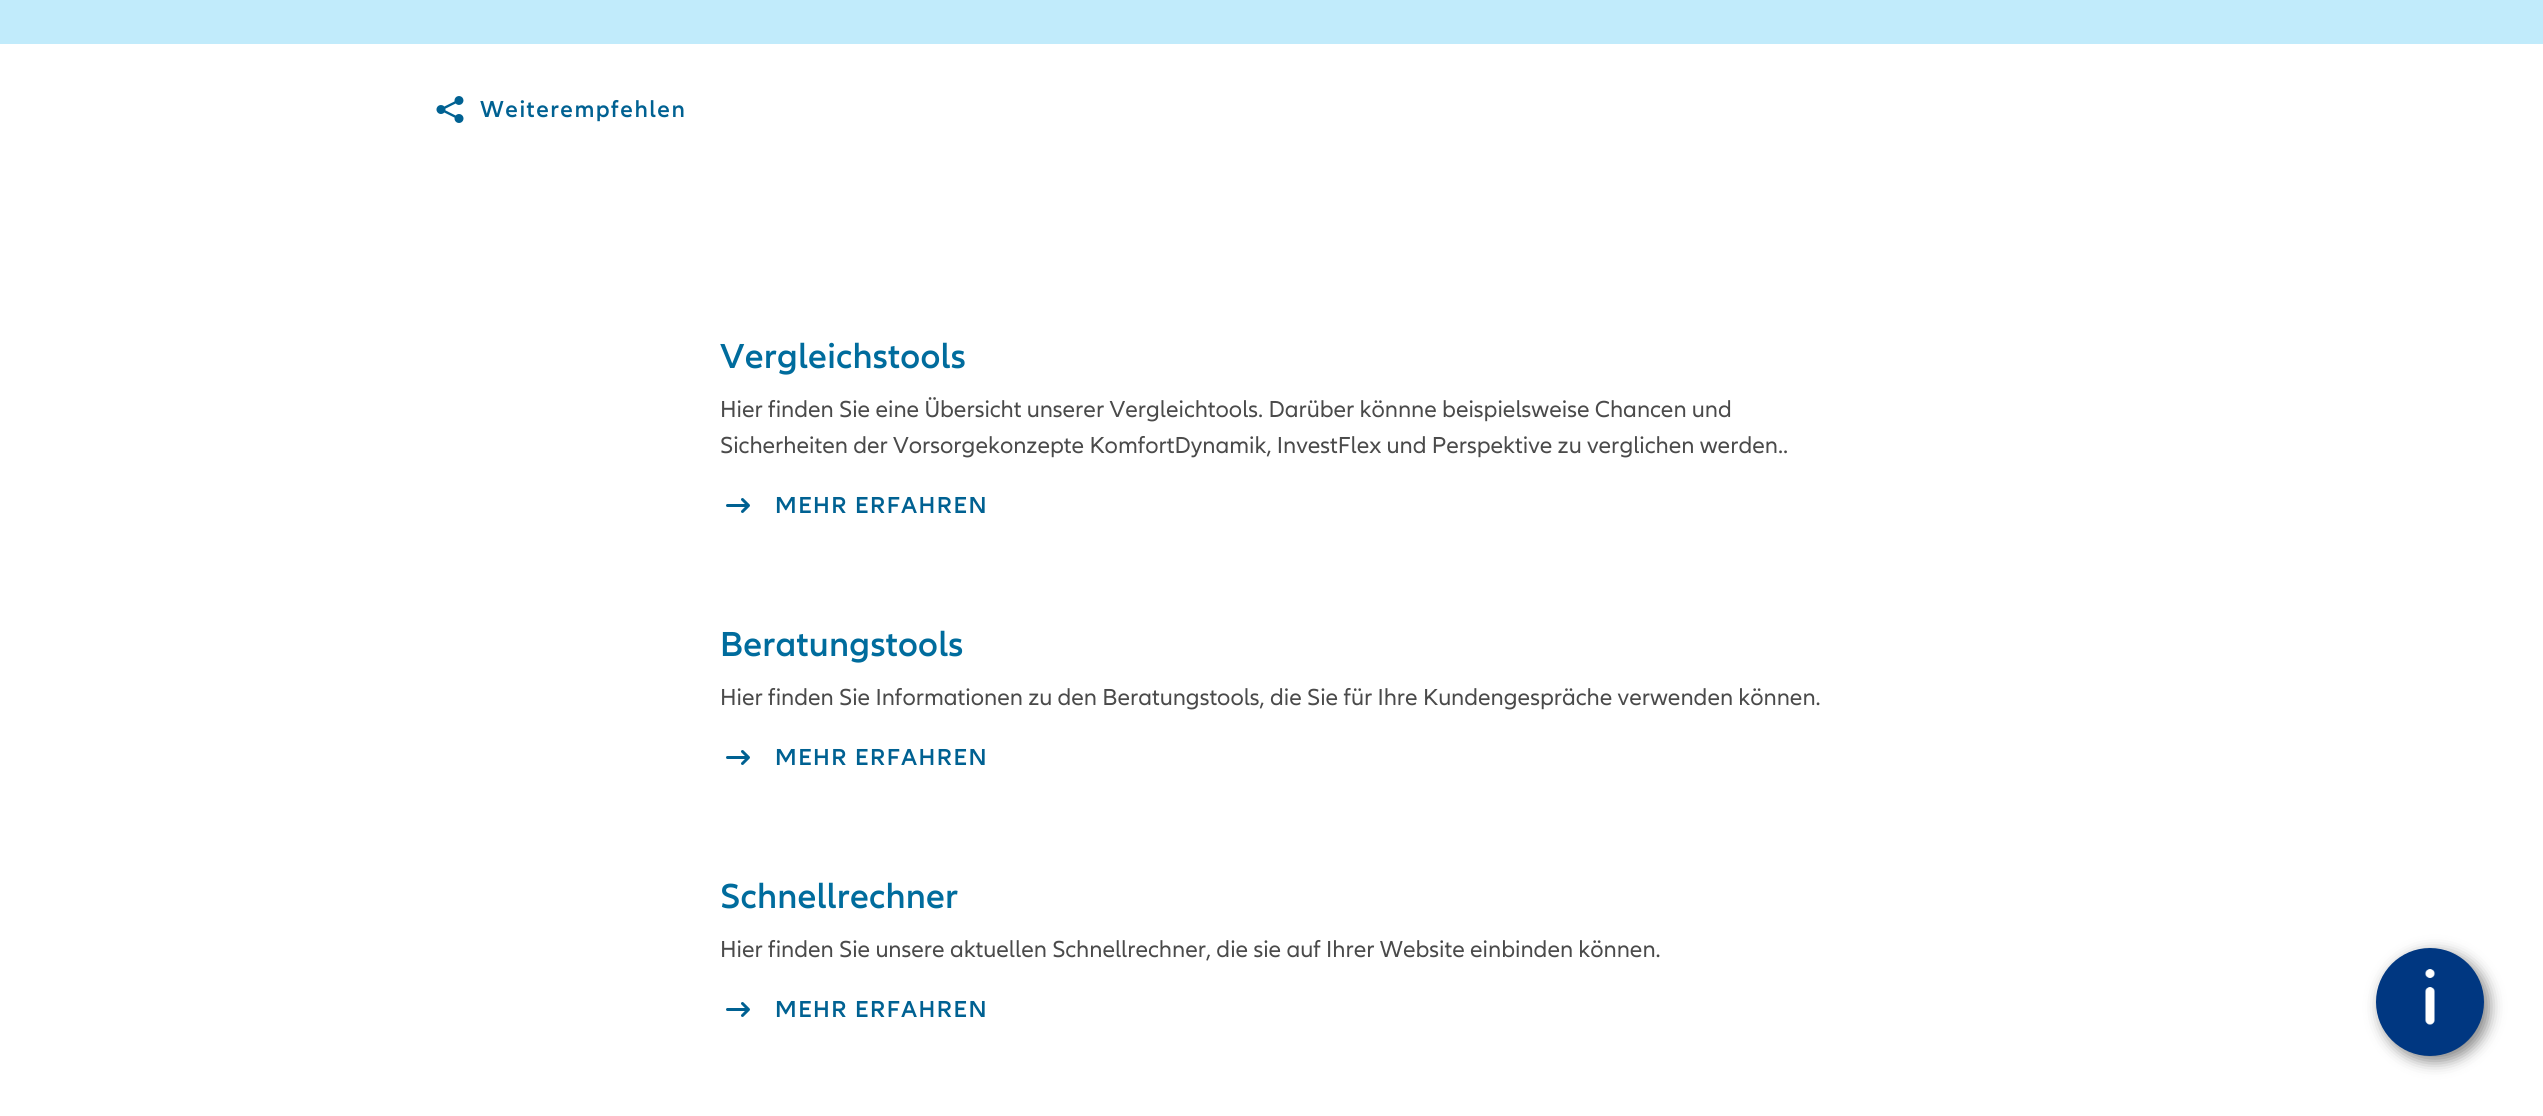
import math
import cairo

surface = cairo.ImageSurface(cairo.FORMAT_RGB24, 2543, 1116)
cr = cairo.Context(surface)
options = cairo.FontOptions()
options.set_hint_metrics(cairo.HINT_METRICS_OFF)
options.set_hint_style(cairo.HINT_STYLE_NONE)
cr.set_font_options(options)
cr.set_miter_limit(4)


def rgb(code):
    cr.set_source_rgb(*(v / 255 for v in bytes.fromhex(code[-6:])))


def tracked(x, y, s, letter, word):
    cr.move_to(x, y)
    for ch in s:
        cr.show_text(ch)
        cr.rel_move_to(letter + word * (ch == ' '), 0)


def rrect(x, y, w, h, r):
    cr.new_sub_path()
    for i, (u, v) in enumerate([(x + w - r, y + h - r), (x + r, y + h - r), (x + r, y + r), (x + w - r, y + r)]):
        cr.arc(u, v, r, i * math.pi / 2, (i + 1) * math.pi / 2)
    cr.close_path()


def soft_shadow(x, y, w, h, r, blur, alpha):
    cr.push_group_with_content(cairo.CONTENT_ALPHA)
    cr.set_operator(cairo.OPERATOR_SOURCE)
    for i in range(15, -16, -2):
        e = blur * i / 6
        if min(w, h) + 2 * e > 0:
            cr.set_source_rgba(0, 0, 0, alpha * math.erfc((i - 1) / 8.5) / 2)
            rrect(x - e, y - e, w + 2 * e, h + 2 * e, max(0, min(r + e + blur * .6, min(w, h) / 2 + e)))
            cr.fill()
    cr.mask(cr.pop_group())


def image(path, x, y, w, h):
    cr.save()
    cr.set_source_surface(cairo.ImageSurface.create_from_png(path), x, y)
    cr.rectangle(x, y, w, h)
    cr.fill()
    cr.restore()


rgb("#ffffff")
cr.paint()
rgb("#c1ebfb")
cr.rectangle(0, 0, 2543, 44)
cr.fill()
image("img/1.png", 436, 96, 28, 27)
image("img/2.png", 726, 498, 24, 15)
image("img/2.png", 726, 750, 24, 15)
image("img/2.png", 726, 1002, 24, 15)
rgb("#000000")
soft_shadow(2381, 953, 108, 108, 54, 7.5, 0.5)
rgb("#003781")
cr.arc(2430, 1002, 54, 0, 2 * math.pi)
cr.fill()
image("img/3.png", 2425, 969, 10, 56)
cr.select_font_face("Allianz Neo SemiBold")
cr.set_font_size(24)
rgb("#006192")
tracked(480, 117, "Weiterempfehlen", 1.5, 0)
cr.set_font_size(36)
rgb("#006c9d")
tracked(720, 368, "Vergleichstools", 0.25, 0)
cr.select_font_face("Allianz Neo")
cr.set_font_size(24)
rgb("#4a4a4a")
cr.move_to(720, 417)
cr.show_text("Hier finden Sie eine Übersicht unserer Vergleichtools. Darüber könnne beispielsweise Chancen und")
cr.move_to(720, 453)
cr.show_text("Sicherheiten der Vorsorgekonzepte KomfortDynamik, InvestFlex und Perspektive zu verglichen werden..")
cr.select_font_face("Allianz Neo SemiBold")
rgb("#006192")
tracked(775, 513, "MEHR ERFAHREN", 1.5, 0)
cr.set_font_size(36)
rgb("#006c9d")
tracked(720, 656, "Beratungstools", 0.25, 0)
cr.select_font_face("Allianz Neo")
cr.set_font_size(24)
rgb("#4a4a4a")
cr.move_to(720, 705)
cr.show_text("Hier finden Sie Informationen zu den Beratungstools, die Sie für Ihre Kundengespräche verwenden können.")
cr.select_font_face("Allianz Neo SemiBold")
rgb("#006192")
tracked(775, 765, "MEHR ERFAHREN", 1.5, 0)
cr.set_font_size(36)
rgb("#006c9d")
tracked(720, 908, "Schnellrechner", 0.25, 0)
cr.select_font_face("Allianz Neo")
cr.set_font_size(24)
rgb("#4a4a4a")
cr.move_to(720, 957)
cr.show_text("Hier finden Sie unsere aktuellen Schnellrechner, die sie auf Ihrer Website einbinden können.")
cr.select_font_face("Allianz Neo SemiBold")
rgb("#006192")
tracked(775, 1017, "MEHR ERFAHREN", 1.5, 0)
surface.write_to_png("page.png")
